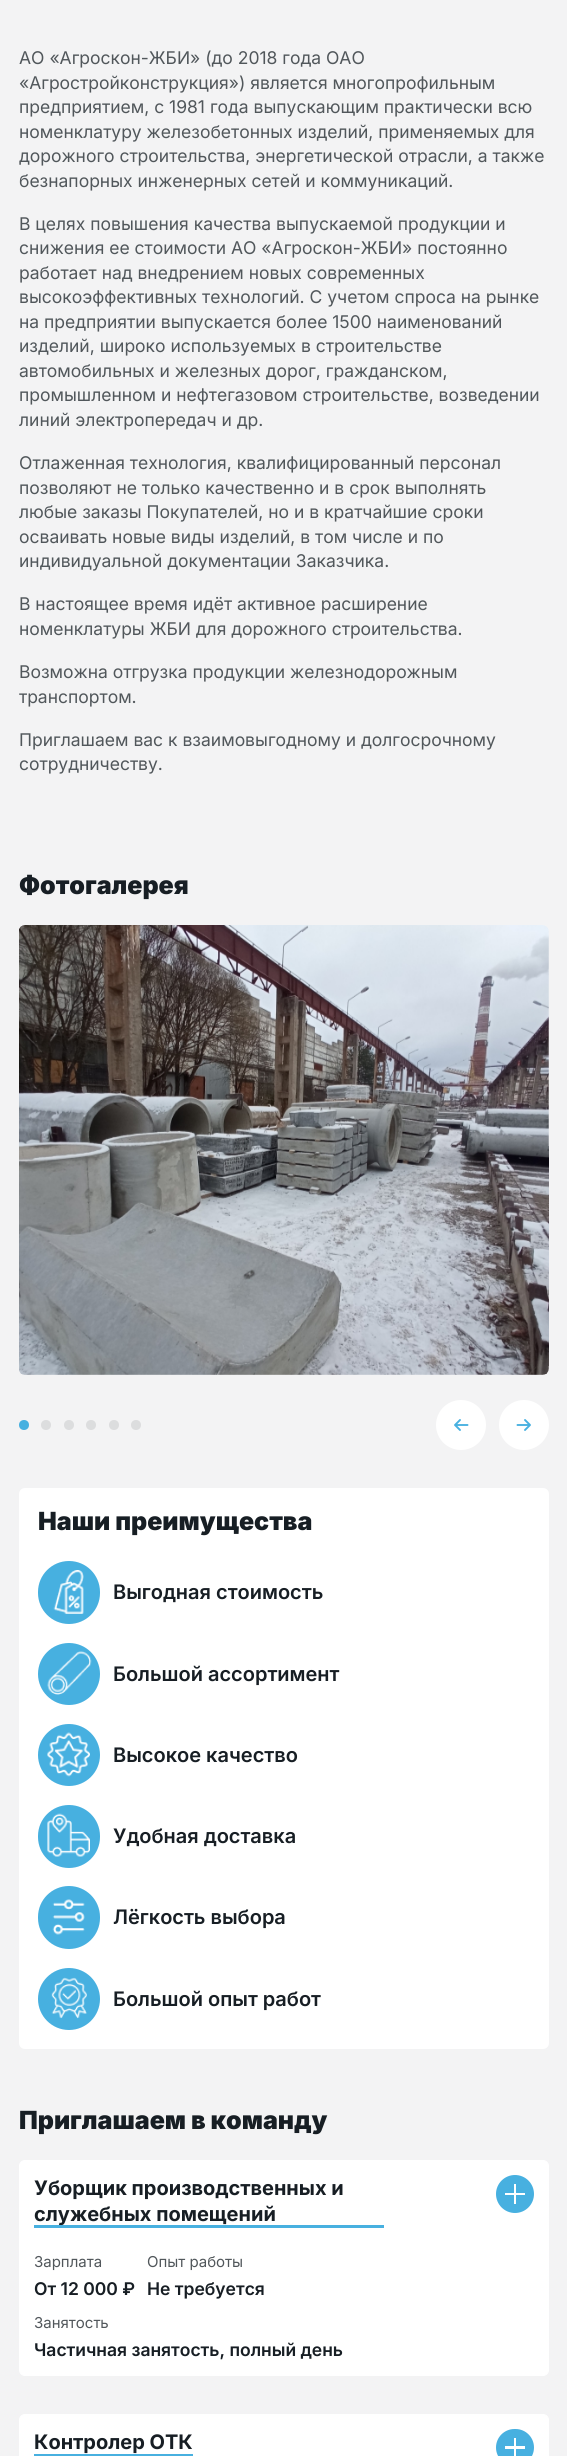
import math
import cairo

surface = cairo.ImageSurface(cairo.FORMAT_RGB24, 567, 2456)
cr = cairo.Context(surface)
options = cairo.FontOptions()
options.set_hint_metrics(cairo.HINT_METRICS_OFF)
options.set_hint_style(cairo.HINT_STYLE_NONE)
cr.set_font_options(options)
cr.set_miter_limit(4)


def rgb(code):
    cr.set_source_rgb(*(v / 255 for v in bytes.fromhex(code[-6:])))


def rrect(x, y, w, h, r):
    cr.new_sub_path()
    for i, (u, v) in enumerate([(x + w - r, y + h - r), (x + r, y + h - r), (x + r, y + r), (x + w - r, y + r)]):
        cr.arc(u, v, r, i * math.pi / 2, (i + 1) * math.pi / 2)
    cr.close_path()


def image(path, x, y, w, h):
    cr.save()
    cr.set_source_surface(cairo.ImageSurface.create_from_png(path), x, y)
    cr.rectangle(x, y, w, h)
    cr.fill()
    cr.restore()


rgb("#f3f3f4")
cr.paint()
image("img/1.png", 19, 925, 530, 450)
rgb("#47b0e0")
cr.arc(24, 1425, 5, 0, 2 * math.pi)
cr.fill()
rgb("#dcddde")
cr.arc(46, 1425, 5, 0, 2 * math.pi)
cr.fill()
cr.arc(69, 1425, 5, 0, 2 * math.pi)
cr.fill()
cr.arc(91, 1425, 5, 0, 2 * math.pi)
cr.fill()
cr.arc(114, 1425, 5, 0, 2 * math.pi)
cr.fill()
cr.arc(136, 1425, 5, 0, 2 * math.pi)
cr.fill()
rgb("#ffffff")
cr.arc(461, 1425, 25, 0, 2 * math.pi)
cr.fill()
cr.new_path()
cr.move_to(467.5, 1425)
cr.line_to(455, 1425)
cr.move_to(455, 1425)
cr.line_to(460, 1430)
cr.move_to(455, 1425)
cr.line_to(460, 1420)
rgb("#47b0e0")
cr.set_line_width(1.9)
cr.set_line_cap(cairo.LINE_CAP_ROUND)
cr.set_line_join(cairo.LINE_JOIN_ROUND)
cr.stroke()
rgb("#ffffff")
cr.arc(524, 1425, 25, 0, 2 * math.pi)
cr.fill()
cr.new_path()
cr.move_to(517.5, 1425)
cr.line_to(530, 1425)
cr.move_to(530, 1425)
cr.line_to(525, 1420)
cr.move_to(530, 1425)
cr.line_to(525, 1430)
rgb("#47b0e0")
cr.stroke()
rgb("#ffffff")
rrect(19, 1488, 530, 561, 6)
cr.fill()
rgb("#47b0e0")
rrect(38, 1561, 62, 63, 31)
cr.fill()
image("img/2.png", 53, 1570, 31, 44)
cr.arc(69, 1674, 31, 0, 2 * math.pi)
cr.fill()
image("img/3.png", 47, 1651, 45, 44)
cr.arc(69, 1755, 31, 0, 2 * math.pi)
cr.fill()
image("img/4.png", 47, 1732, 43, 45)
rrect(38, 1805, 62, 63, 31)
cr.fill()
image("img/5.png", 47, 1813, 43, 44)
rrect(38, 1886, 62, 63, 31)
cr.fill()
image("img/6.png", 52, 1899, 33, 36)
cr.arc(69, 1999, 31, 0, 2 * math.pi)
cr.fill()
image("img/7.png", 51, 1977, 36, 42)
rgb("#ffffff")
rrect(19.5, 2160.5, 529, 215, 5.5)
cr.fill_preserve()
cr.set_line_width(1)
cr.set_line_cap(cairo.LINE_CAP_BUTT)
cr.set_line_join(cairo.LINE_JOIN_MITER)
cr.stroke()
rgb("#47b0e0")
cr.arc(515, 2194, 19, 0, 2 * math.pi)
cr.fill()
rgb("#ffffff")
cr.rectangle(514, 2184, 2, 20)
cr.fill()
cr.rectangle(505, 2193, 20, 2)
cr.fill()
rrect(19.5, 2414.5, 529, 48, 5.5)
cr.fill_preserve()
cr.stroke()
rgb("#47b0e0")
cr.rectangle(34, 2454, 159, 2)
cr.fill()
rrect(496, 2429, 38, 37, 18.5)
cr.fill()
rgb("#ffffff")
cr.rectangle(514, 2438, 2, 18)
cr.fill()
cr.rectangle(505, 2446, 20, 3)
cr.fill()
cr.select_font_face("Inter")
cr.set_font_size(17.5)
rgb("#51575b")
for x, y, s in [
    (19, 64, "АО «Агроскон-ЖБИ» (до 2018 года ОАО"),
    (19, 89, "«Агростройконструкция») является многопрофильным"),
    (19, 113, "предприятием, с 1981 года выпускающим практически всю"),
    (19, 138, "номенклатуру железобетонных изделий, применяемых для"),
    (19, 162, "дорожного строительства, энергетической отрасли, а также"),
    (19, 187, "безнапорных инженерных сетей и коммуникаций."),
    (19, 230, "В целях повышения качества выпускаемой продукции и"),
    (19, 254, "снижения ее стоимости АО «Агроскон-ЖБИ» постоянно"),
    (19, 279, "работает над внедрением новых современных"),
    (19, 303, "высокоэффективных технологий. С учетом спроса на рынке"),
    (19, 328, "на предприятии выпускается более 1500 наименований"),
    (19, 352, "изделий, широко используемых в строительстве"),
    (19, 377, "автомобильных и железных дорог, гражданском,"),
    (19, 401, "промышленном и нефтегазовом строительстве, возведении"),
    (19, 426, "линий электропередач и др."),
    (19, 469, "Отлаженная технология, квалифицированный персонал"),
    (19, 494, "позволяют не только качественно и в срок выполнять"),
    (19, 518, "любые заказы Покупателей, но и в кратчайшие сроки"),
    (19, 543, "осваивать новые виды изделий, в том числе и по"),
    (19, 567, "индивидуальной документации Заказчика."),
    (19, 610, "В настоящее время идёт активное расширение"),
    (19, 635, "номенклатуры ЖБИ для дорожного строительства."),
    (19, 678, "Возможна отгрузка продукции железнодорожным"),
    (19, 703, "транспортом."),
    (19, 746, "Приглашаем вас к взаимовыгодному и долгосрочному"),
    (19, 770, "сотрудничеству."),
]:
    cr.move_to(x, y)
    cr.show_text(s)
cr.select_font_face("Inter Black")
cr.set_font_size(25)
rgb("#171e24")
cr.move_to(19, 894)
cr.show_text("Фотогалерея")
cr.move_to(38, 1530)
cr.show_text("Наши преимущества")
cr.select_font_face("Inter SemiBold")
cr.set_font_size(20)
for x, y, s in [
    (113, 1599, "Выгодная стоимость"),
    (113, 1681, "Большой ассортимент"),
    (113, 1762, "Высокое качество"),
    (113, 1843, "Удобная доставка"),
    (113, 1924, "Лёгкость выбора"),
    (113, 2006, "Большой опыт работ"),
]:
    cr.move_to(x, y)
    cr.show_text(s)
cr.select_font_face("Inter Black")
cr.set_font_size(25)
cr.move_to(19, 2129)
cr.show_text("Приглашаем в команду")
cr.select_font_face("Inter", cairo.FONT_SLANT_NORMAL, cairo.FONT_WEIGHT_BOLD)
cr.set_font_size(20)
cr.move_to(34, 2195)
cr.show_text("Уборщик производственных и")
cr.move_to(34, 2221)
cr.show_text("служебных помещений")
rgb("#47b0e0")
cr.rectangle(34, 2225, 350, 3)
cr.fill()
cr.select_font_face("Inter")
cr.set_font_size(15)
rgb("#51575b")
cr.move_to(34, 2267)
cr.show_text("Зарплата")
cr.select_font_face("Inter SemiBold")
cr.set_font_size(17.5)
rgb("#171e24")
cr.move_to(34, 2295)
cr.show_text("От 12 000 ₽")
cr.select_font_face("Inter")
cr.set_font_size(15)
rgb("#51575b")
cr.move_to(147, 2267)
cr.show_text("Опыт работы")
cr.select_font_face("Inter SemiBold")
cr.set_font_size(17.5)
rgb("#171e24")
cr.move_to(147, 2295)
cr.show_text("Не требуется")
cr.select_font_face("Inter")
cr.set_font_size(15)
rgb("#51575b")
cr.move_to(34, 2328)
cr.show_text("Занятость")
cr.select_font_face("Inter SemiBold")
cr.set_font_size(17.5)
rgb("#171e24")
cr.move_to(34, 2356)
cr.show_text("Частичная занятость, полный день")
cr.select_font_face("Inter", cairo.FONT_SLANT_NORMAL, cairo.FONT_WEIGHT_BOLD)
cr.set_font_size(20)
cr.move_to(34, 2449)
cr.show_text("Контролер ОТК")
surface.write_to_png("page.png")
